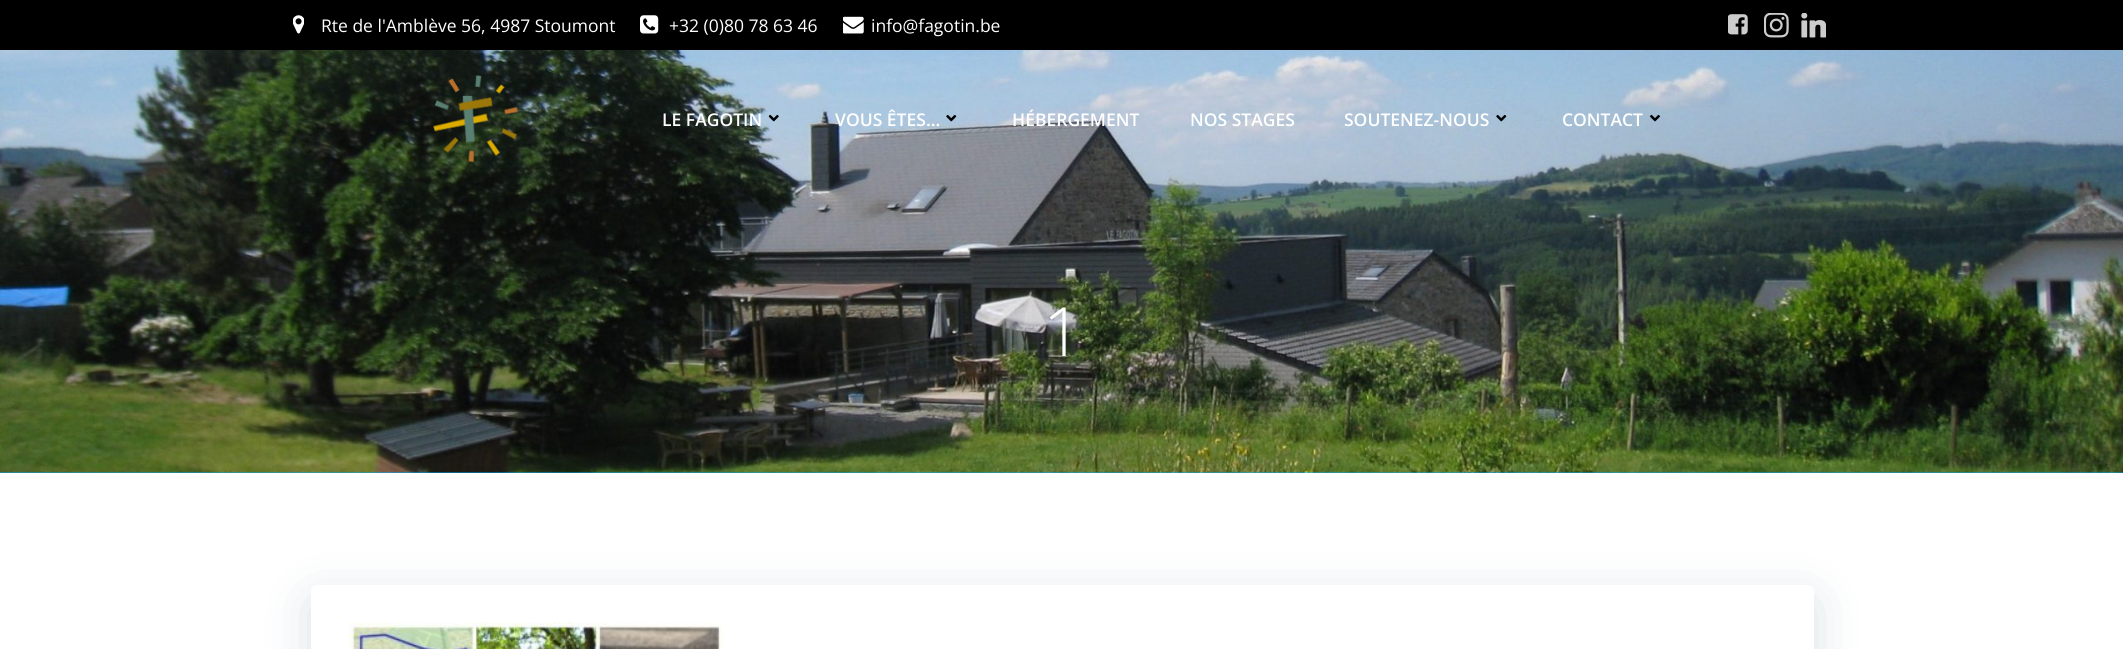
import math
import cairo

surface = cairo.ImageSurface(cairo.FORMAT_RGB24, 2123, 649)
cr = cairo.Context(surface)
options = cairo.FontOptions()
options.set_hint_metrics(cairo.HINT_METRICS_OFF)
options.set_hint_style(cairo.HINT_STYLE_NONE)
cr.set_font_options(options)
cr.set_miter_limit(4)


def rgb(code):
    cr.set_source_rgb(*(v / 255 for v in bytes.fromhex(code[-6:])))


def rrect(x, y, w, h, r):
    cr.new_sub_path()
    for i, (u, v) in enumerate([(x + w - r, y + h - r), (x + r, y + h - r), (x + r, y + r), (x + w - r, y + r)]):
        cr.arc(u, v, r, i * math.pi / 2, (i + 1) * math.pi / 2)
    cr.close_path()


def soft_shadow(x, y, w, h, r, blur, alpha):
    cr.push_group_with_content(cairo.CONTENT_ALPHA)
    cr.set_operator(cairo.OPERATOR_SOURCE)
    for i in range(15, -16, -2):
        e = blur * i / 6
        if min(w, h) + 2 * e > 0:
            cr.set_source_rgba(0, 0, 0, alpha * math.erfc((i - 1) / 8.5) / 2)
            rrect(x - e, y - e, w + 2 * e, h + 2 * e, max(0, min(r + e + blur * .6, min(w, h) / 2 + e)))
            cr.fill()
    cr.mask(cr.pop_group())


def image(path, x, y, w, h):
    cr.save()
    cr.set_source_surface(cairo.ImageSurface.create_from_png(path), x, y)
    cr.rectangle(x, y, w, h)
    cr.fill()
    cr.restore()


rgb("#03a9f4")
cr.paint()
rgb("#000000")
cr.rectangle(0, 0, 2123, 50)
cr.fill()
image("img/1.png", 293, 15, 11, 19)
image("img/2.png", 640, 15, 19, 19)
image("img/3.png", 843, 16, 21, 18)
image("img/4.png", 1728, 14, 20, 21)
image("img/5.png", 1764, 13, 25, 25)
image("img/6.png", 1801, 13, 25, 25)
image("img/12.png", 0, 50, 2123, 423)
image("img/7.png", 433, 75, 86, 88)
image("img/8.png", 768, 114, 11, 8)
image("img/9.png", 946, 114, 11, 8)
image("img/10.png", 1496, 114, 11, 8)
image("img/11.png", 1650, 114, 10, 8)
rgb("#ffffff")
cr.rectangle(0, 473, 2123, 176)
cr.fill()
rgb("#01334a")
soft_shadow(311, 598, 1503, 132, 6, 25, 0.15)
rgb("#ffffff")
rrect(311, 585, 1503, 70, 6)
cr.fill()
image("img/13.png", 348, 622, 376, 27)
cr.select_font_face("Open Sans")
cr.set_font_size(17.5)
for x, y, s in [
    (321, 32, "Rte de l'Amblève 56, 4987 Stoumont"),
    (669, 32, "+32 (0)80 78 63 46"),
    (871, 32, "info@fagotin.be"),
]:
    cr.move_to(x, y)
    cr.show_text(s)
cr.select_font_face("Open Sans SemiBold")
for x, y, s in [
    (662, 126, "LE FAGOTIN"),
    (835, 126, "VOUS ÊTES…"),
    (1012, 126, "HÉBERGEMENT"),
    (1190, 126, "NOS STAGES"),
    (1344, 126, "SOUTENEZ-NOUS"),
    (1562, 126, "CONTACT"),
]:
    cr.move_to(x, y)
    cr.show_text(s)
cr.select_font_face("Open Sans Light")
cr.set_font_size(68)
cr.move_to(1043, 356)
cr.show_text("1")
surface.write_to_png("page.png")
